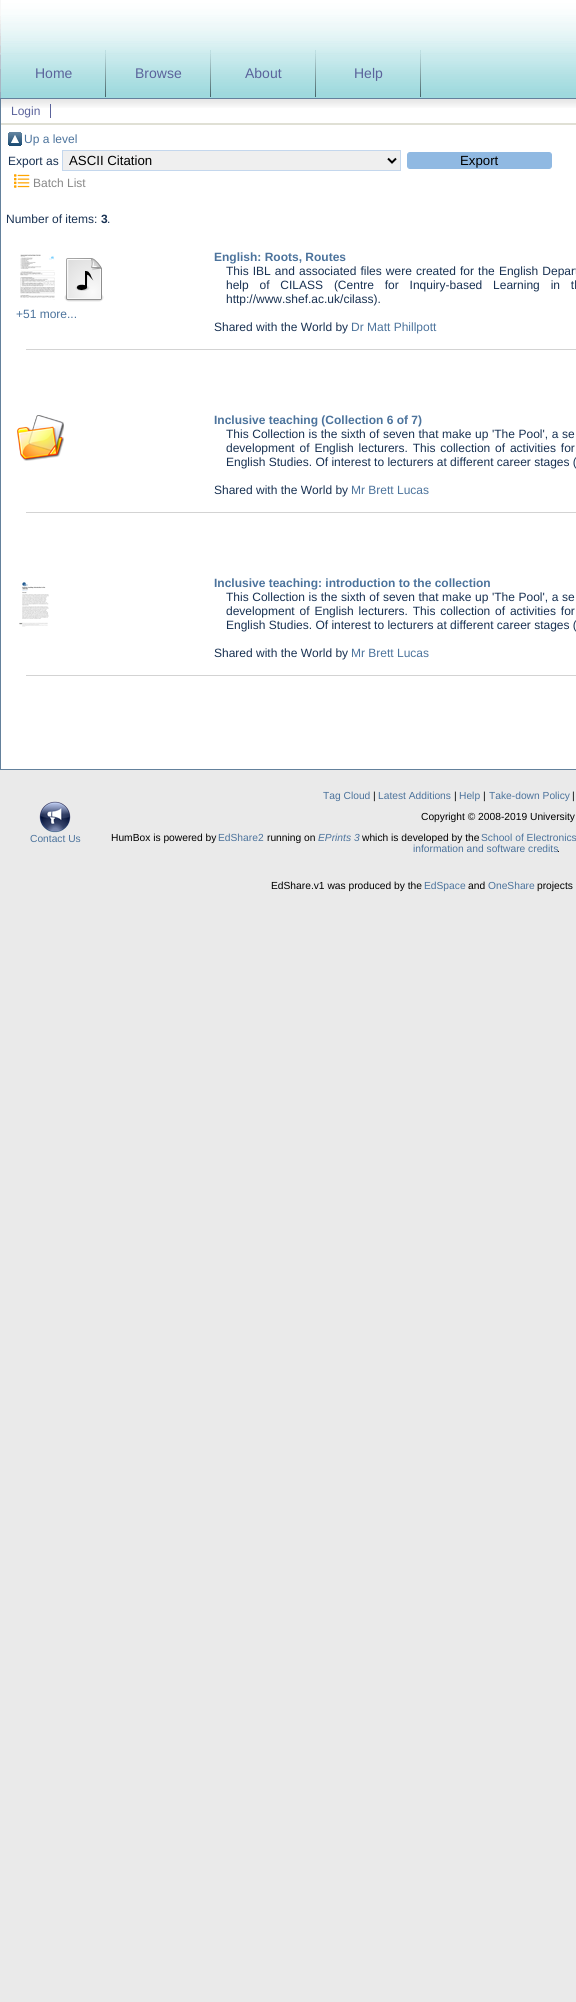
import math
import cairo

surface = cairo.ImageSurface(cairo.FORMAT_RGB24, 576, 2002)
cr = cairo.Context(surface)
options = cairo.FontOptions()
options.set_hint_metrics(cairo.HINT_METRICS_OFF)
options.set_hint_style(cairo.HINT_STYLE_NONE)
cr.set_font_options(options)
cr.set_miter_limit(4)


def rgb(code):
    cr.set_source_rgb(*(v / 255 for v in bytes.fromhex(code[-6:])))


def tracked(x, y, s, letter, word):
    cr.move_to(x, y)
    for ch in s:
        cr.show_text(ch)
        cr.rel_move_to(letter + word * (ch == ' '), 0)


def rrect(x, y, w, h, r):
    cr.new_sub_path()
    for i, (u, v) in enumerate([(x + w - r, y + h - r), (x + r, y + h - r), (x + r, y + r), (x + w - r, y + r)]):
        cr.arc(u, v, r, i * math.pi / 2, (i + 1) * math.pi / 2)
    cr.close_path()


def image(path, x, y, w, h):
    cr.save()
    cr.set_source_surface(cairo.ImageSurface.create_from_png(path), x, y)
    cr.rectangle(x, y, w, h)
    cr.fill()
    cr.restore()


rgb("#eaeaea")
cr.paint()
rgb("#64819c")
cr.rectangle(0, 98, 1, 27)
cr.fill()
image("img/1.png", 0, 0, 1, 98)
image("img/2.png", 1, 0, 575, 98)
cr.rectangle(1, 98, 575, 1)
cr.fill()
image("img/3.png", 105, 50, 1, 47)
image("img/3.png", 210, 50, 1, 47)
image("img/3.png", 315, 50, 1, 47)
image("img/3.png", 420, 50, 1, 47)
rgb("#ffffff")
cr.rectangle(1, 108, 575, 15)
cr.fill()
image("img/4.png", 1, 99, 575, 9)
for x, y, w, h, color in [
    (1, 123, 575, 2, "#e0e0d5"),
    (50, 104, 1, 14, "#5b639b"),
    (1, 125, 575, 644, "#ffffff"),
    (0, 769, 576, 1, "#64819c"),
    (0, 125, 1, 645, "#64819c"),
]:
    rgb(color)
    cr.rectangle(x, y, w, h)
    cr.fill()
image("img/5.png", 8, 132, 14, 14)
rgb("#efefef")
cr.rectangle(62.5, 150.5, 338, 20)
cr.fill_preserve()
rgb("#c4d7ed")
cr.set_line_width(1)
cr.stroke()
cr.new_path()
cr.move_to(388, 158.5)
cr.line_to(392, 162.5)
cr.line_to(396, 158.5)
rgb("#000000")
cr.set_line_width(2)
cr.stroke()
rgb("#90b9e2")
rrect(407.5, 152.5, 144, 16, 2.5)
cr.fill_preserve()
cr.set_line_width(1)
cr.stroke()
image("img/6.png", 14, 174, 16, 14)
image("img/7.png", 20, 254, 35, 46)
image("img/8.png", 64, 258, 40, 44)
rgb("#d3d3d3")
cr.rectangle(26, 349, 550, 1)
cr.fill()
image("img/9.png", 17, 415, 47, 46)
cr.rectangle(26, 512, 550, 1)
cr.fill()
image("img/10.png", 19, 582, 30, 45)
cr.rectangle(26, 675, 550, 1)
cr.fill()
image("img/11.png", 39, 801, 32, 32)
cr.select_font_face("Liberation Sans")
cr.set_font_size(14)
rgb("#5b639b")
for x, y, s in [
    (35, 78, "Home"),
    (135, 78, "Browse"),
    (245, 78, "About"),
    (354, 78, "Help"),
]:
    cr.move_to(x, y)
    cr.show_text(s)
cr.set_font_size(12)
cr.move_to(11, 115)
cr.show_text("Login")
rgb("#4c739c")
cr.move_to(24, 143)
cr.show_text("Up a level")
rgb("#183152")
cr.move_to(8, 165)
cr.show_text("Export as")
cr.set_font_size(13.25)
rgb("#000000")
cr.move_to(69, 165)
cr.show_text("ASCII Citation")
cr.move_to(460, 165)
cr.show_text("Export")
cr.set_font_size(12)
rgb("#888888")
cr.move_to(33, 187)
cr.show_text("Batch List")
rgb("#183152")
cr.move_to(6, 223)
cr.show_text("Number of items:")
cr.select_font_face("Liberation Sans", cairo.FONT_SLANT_NORMAL, cairo.FONT_WEIGHT_BOLD)
cr.move_to(101, 223)
cr.show_text("3")
cr.select_font_face("Liberation Sans")
cr.move_to(107, 223)
cr.show_text(".")
cr.select_font_face("Liberation Sans", cairo.FONT_SLANT_NORMAL, cairo.FONT_WEIGHT_BOLD)
rgb("#4c739c")
cr.move_to(214, 261)
cr.show_text("English: Roots, Routes")
cr.select_font_face("Liberation Sans")
rgb("#183152")
tracked(226, 275, "This IBL and associated files were created for the English Depart", 0, 0.75)
tracked(226, 289, "help of CILASS (Centre for Inquiry-based Learning in th", 0, 7.5)
cr.move_to(226, 303)
cr.show_text("http://www.shef.ac.uk/cilass).")
cr.move_to(214, 331)
cr.show_text("Shared with the World by")
rgb("#4c739c")
cr.move_to(351, 331)
cr.show_text("Dr Matt Phillpott")
cr.move_to(16, 318)
cr.show_text("+51 more...")
cr.select_font_face("Liberation Sans", cairo.FONT_SLANT_NORMAL, cairo.FONT_WEIGHT_BOLD)
cr.move_to(214, 424)
cr.show_text("Inclusive teaching (Collection 6 of 7)")
cr.select_font_face("Liberation Sans")
rgb("#183152")
tracked(226, 438, "This Collection is the sixth of seven that make up 'The Pool', a se", 0, 0.25)
tracked(226, 452, "development of English lecturers. This collection of activities for", 0, 1.5)
cr.move_to(226, 466)
cr.show_text("English Studies. Of interest to lecturers at different career stages (")
cr.move_to(214, 494)
cr.show_text("Shared with the World by")
rgb("#4c739c")
cr.move_to(351, 494)
cr.show_text("Mr Brett Lucas")
cr.select_font_face("Liberation Sans", cairo.FONT_SLANT_NORMAL, cairo.FONT_WEIGHT_BOLD)
cr.move_to(214, 587)
cr.show_text("Inclusive teaching: introduction to the collection")
cr.select_font_face("Liberation Sans")
rgb("#183152")
tracked(226, 601, "This Collection is the sixth of seven that make up 'The Pool', a se", 0, 0.25)
tracked(226, 615, "development of English lecturers. This collection of activities for", 0, 1.5)
cr.move_to(226, 629)
cr.show_text("English Studies. Of interest to lecturers at different career stages (")
cr.move_to(214, 657)
cr.show_text("Shared with the World by")
rgb("#4c739c")
cr.move_to(351, 657)
cr.show_text("Mr Brett Lucas")
cr.set_font_size(10.25)
cr.move_to(323, 799)
cr.show_text("Tag Cloud")
rgb("#000000")
cr.move_to(373, 799)
cr.show_text("|")
rgb("#4c739c")
cr.move_to(378, 799)
cr.show_text("Latest Additions")
rgb("#000000")
cr.move_to(454, 799)
cr.show_text("|")
rgb("#4c739c")
cr.move_to(459, 799)
cr.show_text("Help")
rgb("#000000")
cr.move_to(483, 799)
cr.show_text("|")
rgb("#4c739c")
cr.move_to(489, 799)
cr.show_text("Take-down Policy")
rgb("#000000")
cr.move_to(572, 799)
cr.show_text("|")
cr.move_to(421, 820)
cr.show_text("Copyright © 2008-2019 University")
rgb("#4c739c")
cr.move_to(30, 842)
cr.show_text("Contact Us")
rgb("#000000")
cr.move_to(111, 841)
cr.show_text("HumBox is powered by")
rgb("#4c739c")
cr.move_to(218, 841)
cr.show_text("EdShare2")
rgb("#000000")
cr.move_to(267, 841)
cr.show_text("running on")
cr.select_font_face("Liberation Sans", cairo.FONT_SLANT_ITALIC)
rgb("#4c739c")
cr.move_to(318, 841)
cr.show_text("EPrints 3")
cr.select_font_face("Liberation Sans")
rgb("#000000")
cr.move_to(362, 841)
cr.show_text("which is developed by the")
rgb("#4c739c")
cr.move_to(481, 841)
cr.show_text("School of Electronics")
cr.move_to(413, 852)
cr.show_text("information and software credits")
rgb("#000000")
cr.move_to(557, 852)
cr.show_text(".")
cr.move_to(271, 889)
cr.show_text("EdShare.v1 was produced by the")
rgb("#4c739c")
cr.move_to(424, 889)
cr.show_text("EdSpace")
rgb("#000000")
cr.move_to(468, 889)
cr.show_text("and")
rgb("#4c739c")
cr.move_to(488, 889)
cr.show_text("OneShare")
rgb("#000000")
cr.move_to(537, 889)
cr.show_text("projects")
surface.write_to_png("page.png")
